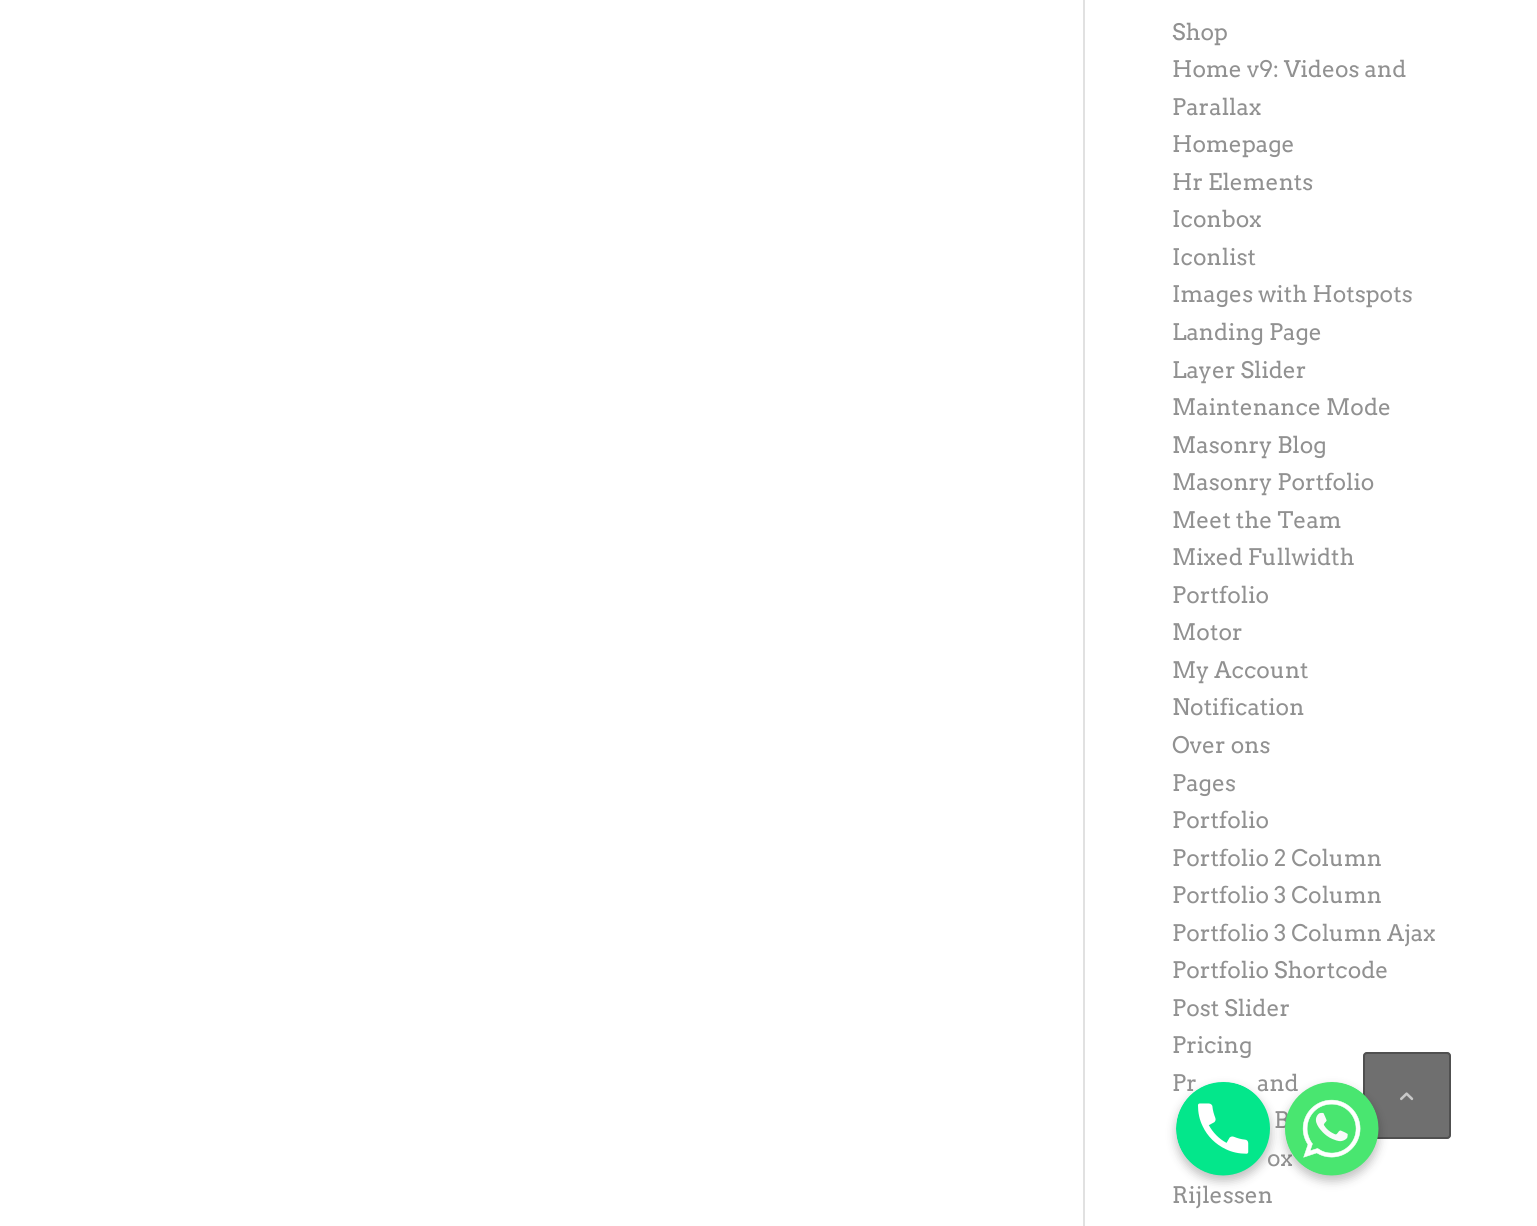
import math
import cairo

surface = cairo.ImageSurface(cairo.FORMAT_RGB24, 1537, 1226)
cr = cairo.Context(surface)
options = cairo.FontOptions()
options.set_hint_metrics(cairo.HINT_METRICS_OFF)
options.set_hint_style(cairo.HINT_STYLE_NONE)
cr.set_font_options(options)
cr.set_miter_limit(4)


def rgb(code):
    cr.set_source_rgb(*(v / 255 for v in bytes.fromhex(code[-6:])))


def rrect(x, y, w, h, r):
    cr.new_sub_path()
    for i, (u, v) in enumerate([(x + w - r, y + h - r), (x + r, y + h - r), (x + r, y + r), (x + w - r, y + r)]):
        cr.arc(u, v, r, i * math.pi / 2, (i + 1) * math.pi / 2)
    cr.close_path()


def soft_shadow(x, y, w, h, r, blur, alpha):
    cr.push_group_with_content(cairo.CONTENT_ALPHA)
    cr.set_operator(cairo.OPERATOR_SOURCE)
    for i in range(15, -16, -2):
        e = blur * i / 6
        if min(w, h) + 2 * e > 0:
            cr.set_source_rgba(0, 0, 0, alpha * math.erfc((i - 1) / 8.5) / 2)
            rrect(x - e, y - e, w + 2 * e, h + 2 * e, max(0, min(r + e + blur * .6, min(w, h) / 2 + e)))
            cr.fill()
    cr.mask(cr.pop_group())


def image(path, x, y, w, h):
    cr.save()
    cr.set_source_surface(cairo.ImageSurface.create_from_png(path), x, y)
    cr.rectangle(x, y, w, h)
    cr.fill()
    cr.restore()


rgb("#ffffff")
cr.paint()
rgb("#e1e1e1")
cr.rectangle(1083, 0, 2, 1226)
cr.fill()
rgb("#000000")
soft_shadow(1176, 1087, 95, 94, 47, 5, 0.25)
cr.set_source_rgba(0.2, 0.2, 0.2, 0.7)
rrect(1363, 1052, 88, 87, 4)
cr.fill()
rrect(1364, 1053, 86, 85, 3)
cr.set_source_rgba(0.267, 0.267, 0.267, 0.7)
cr.stroke()
image("img/3.png", 1400, 1092, 14, 9)
cr.select_font_face("Arvo")
cr.set_font_size(22.75)
rgb("#919191")
for x, y, s in [
    (1172, 40, "Shop"),
    (1172, 77, "Home v9: Videos and"),
    (1172, 115, "Parallax"),
    (1172, 152, "Homepage"),
    (1172, 190, "Hr Elements"),
    (1172, 227, "Iconbox"),
    (1172, 265, "Iconlist"),
    (1172, 302, "Images with Hotspots"),
    (1172, 340, "Landing Page"),
    (1172, 378, "Layer Slider"),
    (1172, 415, "Maintenance Mode"),
    (1172, 453, "Masonry Blog"),
    (1172, 490, "Masonry Portfolio"),
    (1172, 528, "Meet the Team"),
    (1172, 565, "Mixed Fullwidth"),
    (1172, 603, "Portfolio"),
    (1172, 640, "Motor"),
    (1172, 678, "My Account"),
    (1172, 715, "Notification"),
    (1172, 753, "Over ons"),
    (1172, 791, "Pages"),
    (1172, 828, "Portfolio"),
    (1172, 866, "Portfolio 2 Column"),
    (1172, 903, "Portfolio 3 Column"),
    (1172, 941, "Portfolio 3 Column Ajax"),
    (1172, 978, "Portfolio Shortcode"),
    (1172, 1016, "Post Slider"),
    (1172, 1053, "Pricing"),
    (1172, 1091, "Pr"),
    (1257, 1091, "and"),
    (1274, 1128, "B"),
    (1267, 1166, "ox"),
    (1172, 1203, "Rijlessen"),
]:
    cr.move_to(x, y)
    cr.show_text(s)
image("img/1.png", 1176, 1082, 94, 94)
rgb("#000000")
soft_shadow(1285, 1087, 94, 94, 47, 5, 0.25)
image("img/2.png", 1285, 1082, 94, 94)
surface.write_to_png("page.png")
